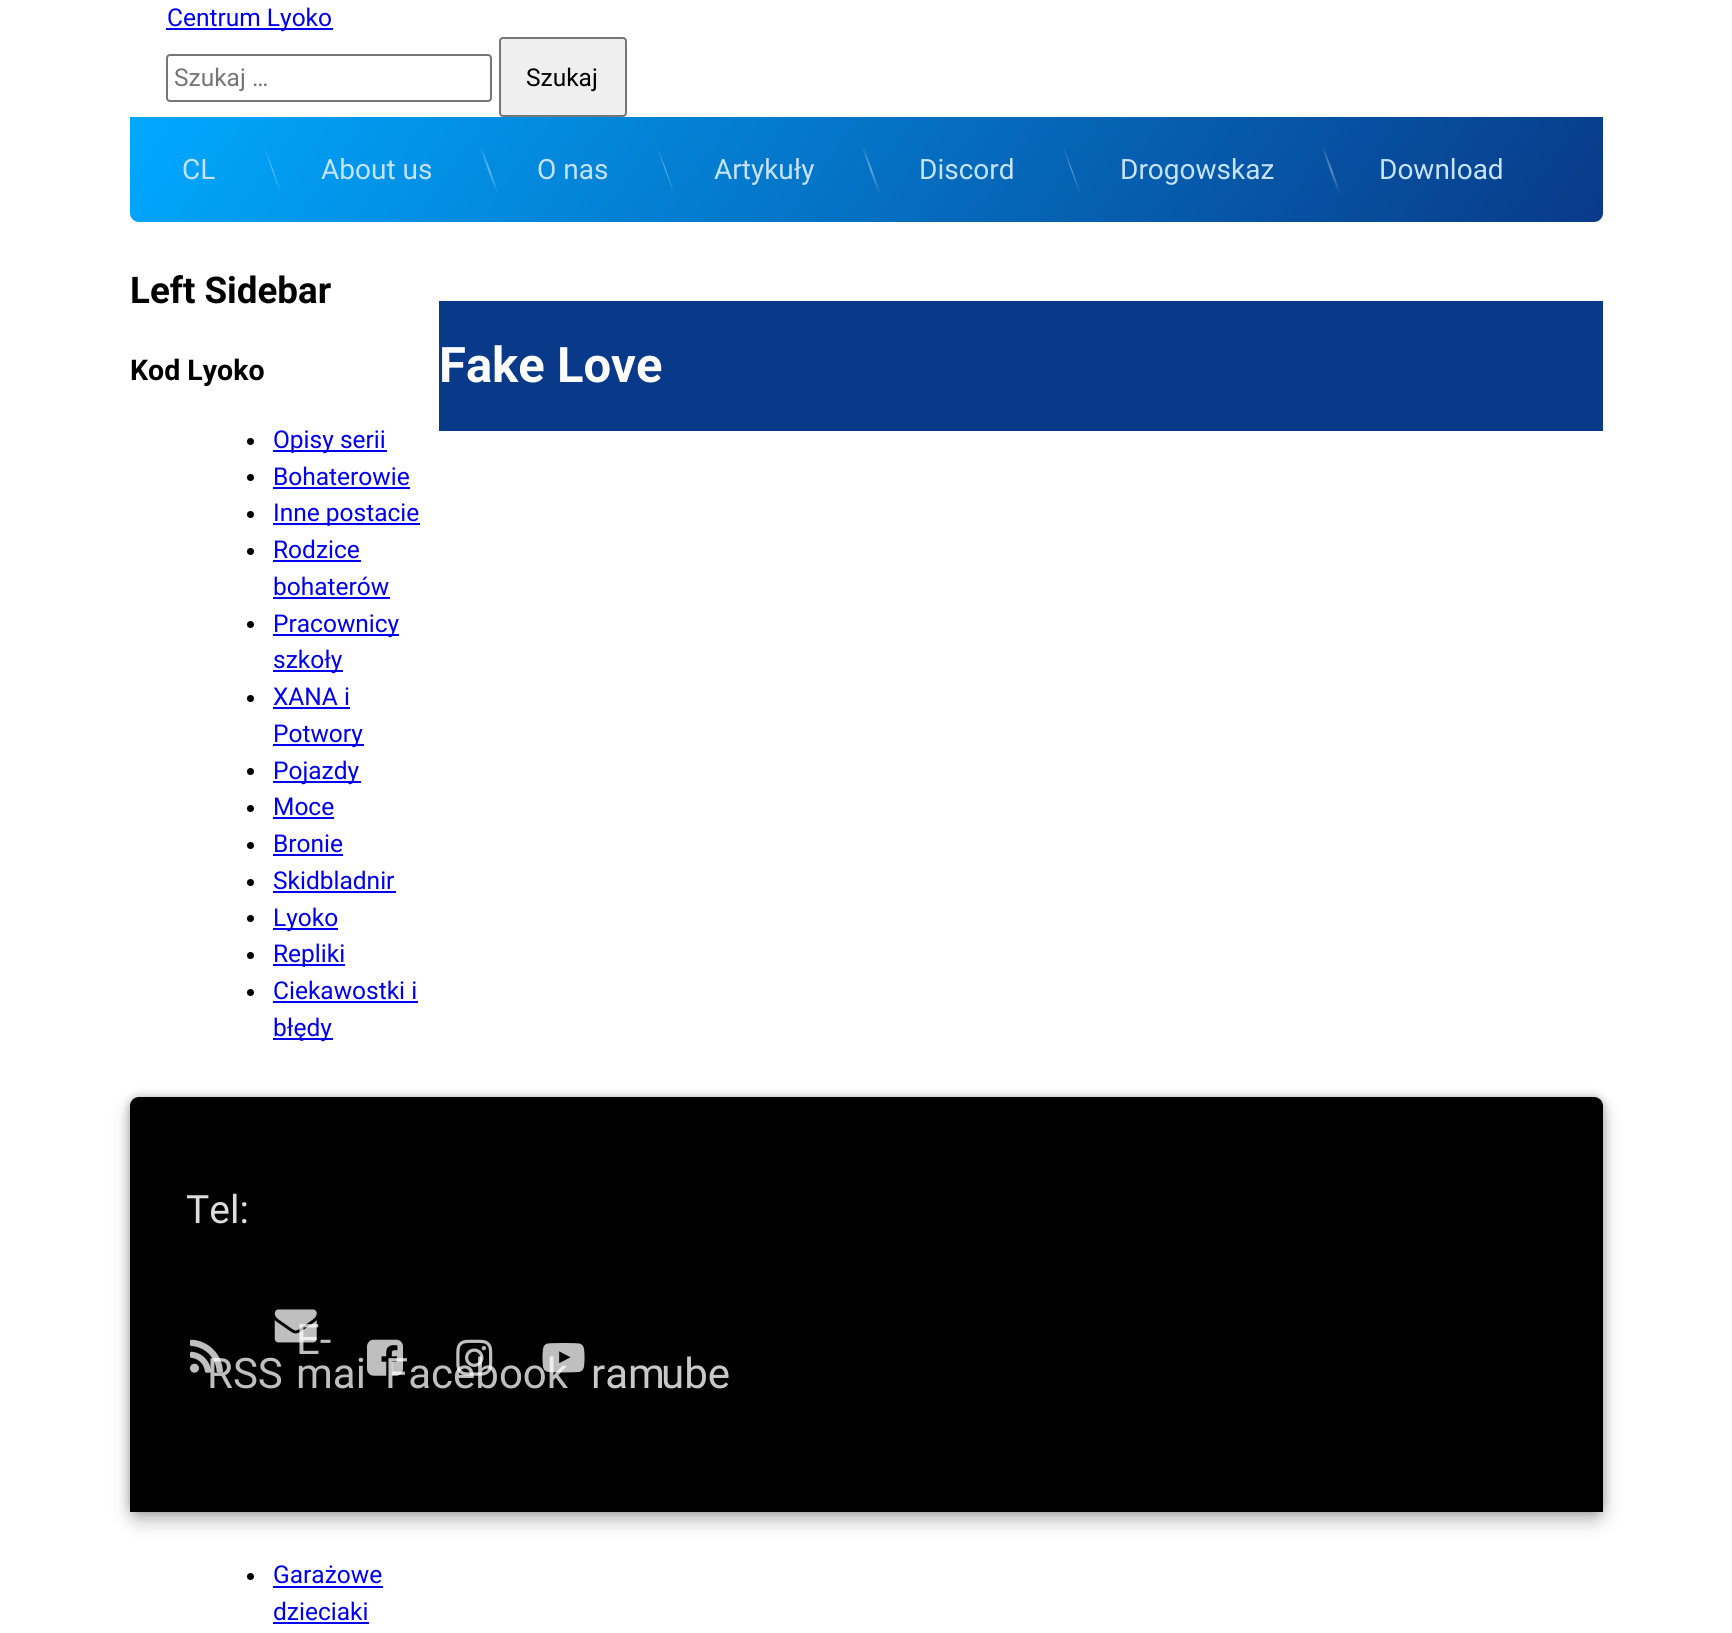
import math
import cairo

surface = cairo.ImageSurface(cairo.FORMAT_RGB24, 1732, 1633)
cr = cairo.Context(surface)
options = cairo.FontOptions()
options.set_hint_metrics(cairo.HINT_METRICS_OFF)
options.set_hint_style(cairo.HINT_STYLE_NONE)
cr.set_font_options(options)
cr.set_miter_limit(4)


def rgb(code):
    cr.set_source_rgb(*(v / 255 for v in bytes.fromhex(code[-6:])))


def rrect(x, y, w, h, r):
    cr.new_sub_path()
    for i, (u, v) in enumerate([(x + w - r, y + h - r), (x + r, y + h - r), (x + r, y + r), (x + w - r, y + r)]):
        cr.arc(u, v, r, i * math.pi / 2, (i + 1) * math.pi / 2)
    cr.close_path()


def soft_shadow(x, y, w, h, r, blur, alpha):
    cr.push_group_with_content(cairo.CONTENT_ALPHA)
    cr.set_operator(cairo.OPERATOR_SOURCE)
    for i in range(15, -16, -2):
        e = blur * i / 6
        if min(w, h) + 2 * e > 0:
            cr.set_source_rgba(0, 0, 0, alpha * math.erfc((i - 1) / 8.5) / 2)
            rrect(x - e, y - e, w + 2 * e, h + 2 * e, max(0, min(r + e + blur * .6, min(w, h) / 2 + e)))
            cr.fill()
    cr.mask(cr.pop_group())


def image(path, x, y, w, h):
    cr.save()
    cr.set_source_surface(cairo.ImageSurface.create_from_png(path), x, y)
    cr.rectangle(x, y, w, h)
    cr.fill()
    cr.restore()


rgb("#ffffff")
cr.paint()
rgb("#0000ee")
cr.rectangle(166, 28, 167, 2)
cr.fill()
rrect(167, 55, 324, 46, 3)
rgb("#767676")
cr.stroke()
rgb("#efefef")
rrect(500, 38, 126, 78, 3)
cr.fill_preserve()
rgb("#767676")
cr.stroke()
gradient = cairo.LinearGradient(347, -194, 1385, 533)
gradient.add_color_stop_rgba(0, 0, 0.663, 1, 1)
gradient.add_color_stop_rgba(1, 0.035, 0.227, 0.537, 1)
cr.set_source(gradient)
cr.new_path()
cr.move_to(130, 117)
cr.line_to(1603, 117)
cr.line_to(1603, 213)
cr.curve_to(1603, 218, 1599, 222, 1594, 222)
cr.line_to(139, 222)
cr.curve_to(134, 222, 130, 218, 130, 213)
cr.close_path()
cr.fill()
gradient = cairo.LinearGradient(264, 145, 282, 194)
gradient.add_color_stop_rgba(0, 1, 1, 1, 0)
gradient.add_color_stop_rgba(0.5, 1, 1, 1, 0.36)
gradient.add_color_stop_rgba(1, 1, 1, 1, 0)
cr.set_source(gradient)
cr.new_path()
cr.move_to(263, 145)
cr.line_to(264, 145)
cr.line_to(282, 194)
cr.line_to(281, 195)
cr.close_path()
cr.fill()
gradient = cairo.LinearGradient(480, 145, 498, 194)
gradient.add_color_stop_rgba(0, 1, 1, 1, 0)
gradient.add_color_stop_rgba(0.5, 1, 1, 1, 0.36)
gradient.add_color_stop_rgba(1, 1, 1, 1, 0)
cr.set_source(gradient)
cr.new_path()
cr.move_to(479, 145)
cr.line_to(481, 145)
cr.line_to(499, 194)
cr.line_to(497, 195)
cr.close_path()
cr.fill()
gradient = cairo.LinearGradient(656, 145, 674, 194)
gradient.add_color_stop_rgba(0, 1, 1, 1, 0)
gradient.add_color_stop_rgba(0.5, 1, 1, 1, 0.36)
gradient.add_color_stop_rgba(1, 1, 1, 1, 0)
cr.set_source(gradient)
cr.new_path()
cr.move_to(656, 145)
cr.line_to(657, 145)
cr.line_to(675, 194)
cr.line_to(674, 195)
cr.close_path()
cr.fill()
gradient = cairo.LinearGradient(862, 145, 880, 194)
gradient.add_color_stop_rgba(0, 1, 1, 1, 0)
gradient.add_color_stop_rgba(0.5, 1, 1, 1, 0.36)
gradient.add_color_stop_rgba(1, 1, 1, 1, 0)
cr.set_source(gradient)
cr.new_path()
cr.move_to(861, 145)
cr.line_to(863, 145)
cr.line_to(881, 194)
cr.line_to(879, 195)
cr.close_path()
cr.fill()
gradient = cairo.LinearGradient(1063, 145, 1081, 194)
gradient.add_color_stop_rgba(0, 1, 1, 1, 0)
gradient.add_color_stop_rgba(0.5, 1, 1, 1, 0.36)
gradient.add_color_stop_rgba(1, 1, 1, 1, 0)
cr.set_source(gradient)
cr.new_path()
cr.move_to(1062, 145)
cr.line_to(1063, 145)
cr.line_to(1081, 194)
cr.line_to(1080, 195)
cr.close_path()
cr.fill()
gradient = cairo.LinearGradient(1322, 145, 1340, 194)
gradient.add_color_stop_rgba(0, 1, 1, 1, 0)
gradient.add_color_stop_rgba(0.5, 1, 1, 1, 0.36)
gradient.add_color_stop_rgba(1, 1, 1, 1, 0)
cr.set_source(gradient)
cr.new_path()
cr.move_to(1321, 145)
cr.line_to(1323, 145)
cr.line_to(1341, 194)
cr.line_to(1339, 195)
cr.close_path()
cr.fill()
rgb("#000000")
cr.arc(250.5, 441.5, 3.5, 0, 2 * math.pi)
cr.fill()
rgb("#0000ee")
cr.rectangle(273, 450, 114, 2)
cr.fill()
rgb("#000000")
cr.arc(250.5, 477.5, 3.5, 0, 2 * math.pi)
cr.fill()
rgb("#0000ee")
cr.rectangle(273, 487, 137, 2)
cr.fill()
rgb("#000000")
cr.arc(250.5, 514.5, 3.5, 0, 2 * math.pi)
cr.fill()
rgb("#0000ee")
cr.rectangle(273, 523, 147, 2)
cr.fill()
rgb("#000000")
cr.arc(250.5, 551.5, 3.5, 0, 2 * math.pi)
cr.fill()
rgb("#0000ee")
cr.rectangle(273, 560, 88, 2)
cr.fill()
cr.rectangle(273, 597, 117, 2)
cr.fill()
rgb("#000000")
cr.arc(250.5, 624.5, 3.5, 0, 2 * math.pi)
cr.fill()
rgb("#0000ee")
cr.rectangle(273, 634, 126, 2)
cr.fill()
cr.rectangle(273, 670, 70, 2)
cr.fill()
rgb("#000000")
cr.arc(250.5, 698.5, 3.5, 0, 2 * math.pi)
cr.fill()
rgb("#0000ee")
cr.rectangle(273, 707, 77, 2)
cr.fill()
cr.rectangle(273, 744, 91, 2)
cr.fill()
rgb("#000000")
cr.arc(250.5, 771.5, 3.5, 0, 2 * math.pi)
cr.fill()
rgb("#0000ee")
cr.rectangle(273, 781, 88, 2)
cr.fill()
rgb("#000000")
cr.arc(250.5, 808.5, 3.5, 0, 2 * math.pi)
cr.fill()
rgb("#0000ee")
cr.rectangle(273, 817, 61, 2)
cr.fill()
rgb("#000000")
cr.arc(250.5, 845.5, 3.5, 0, 2 * math.pi)
cr.fill()
rgb("#0000ee")
cr.rectangle(273, 854, 70, 2)
cr.fill()
rgb("#000000")
cr.arc(250.5, 882.5, 3.5, 0, 2 * math.pi)
cr.fill()
rgb("#0000ee")
cr.rectangle(273, 891, 123, 2)
cr.fill()
rgb("#000000")
cr.arc(250.5, 918.5, 3.5, 0, 2 * math.pi)
cr.fill()
rgb("#0000ee")
cr.rectangle(273, 928, 65, 2)
cr.fill()
rgb("#000000")
cr.arc(250.5, 955.5, 3.5, 0, 2 * math.pi)
cr.fill()
rgb("#0000ee")
cr.rectangle(273, 964, 72, 2)
cr.fill()
rgb("#000000")
cr.arc(250.5, 992.5, 3.5, 0, 2 * math.pi)
cr.fill()
rgb("#0000ee")
cr.rectangle(273, 1001, 145, 2)
cr.fill()
cr.rectangle(273, 1038, 60, 2)
cr.fill()
rgb("#000000")
cr.arc(250.5, 1576.5, 3.5, 0, 2 * math.pi)
cr.fill()
for x, y, w, h, color in [
    (273, 1586, 110, 2, "#0000ee"),
    (273, 1622, 96, 2, "#0000ee"),
    (439, 301, 1164, 130, "#093a89"),
]:
    rgb(color)
    cr.rectangle(x, y, w, h)
    cr.fill()
rgb("#000000")
soft_shadow(130, 1097, 1473, 415, 9, 4.5, 0.25)
soft_shadow(130, 1106, 1473, 415, 9, 9, 0.25)
rgb("#000000")
cr.new_path()
cr.move_to(139, 1097)
cr.line_to(1594, 1097)
cr.curve_to(1599, 1097, 1603, 1101, 1603, 1106)
cr.line_to(1603, 1512)
cr.line_to(130, 1512)
cr.line_to(130, 1106)
cr.curve_to(130, 1101, 134, 1097, 139, 1097)
cr.close_path()
cr.fill()
cr.select_font_face("Roboto")
cr.set_font_size(24.5)
rgb("#0000ee")
cr.move_to(167, 26)
cr.show_text("Centrum Lyoko")
cr.save()
cr.rectangle(173, 63, 287, 28)
cr.clip()
rgb("#757575")
cr.move_to(174, 86)
cr.show_text("Szukaj …")
cr.restore()
rgb("#000000")
cr.move_to(526, 86)
cr.show_text("Szukaj")
cr.set_font_size(28)
rgb("#c5e2ff")
for x, y, s in [
    (182, 179, "CL"),
    (321, 179, "About us"),
    (537, 179, "O nas"),
    (714, 179, "Artykuły"),
    (919, 179, "Discord"),
    (1120, 179, "Drogowskaz"),
    (1379, 179, "Download"),
]:
    cr.move_to(x, y)
    cr.show_text(s)
cr.select_font_face("Roboto", cairo.FONT_SLANT_NORMAL, cairo.FONT_WEIGHT_BOLD)
cr.set_font_size(36.75)
rgb("#000000")
cr.move_to(130, 303)
cr.show_text("Left Sidebar")
cr.set_font_size(28.5)
cr.move_to(130, 380)
cr.show_text("Kod Lyoko")
cr.select_font_face("Roboto")
cr.set_font_size(24.5)
rgb("#0000ee")
for x, y, s in [
    (273, 448, "Opisy serii"),
    (273, 485, "Bohaterowie"),
    (273, 521, "Inne postacie"),
    (273, 558, "Rodzice"),
    (273, 595, "bohaterów"),
    (273, 632, "Pracownicy"),
    (273, 668, "szkoły"),
    (273, 705, "XANA i"),
    (273, 742, "Potwory"),
    (273, 779, "Pojazdy"),
    (273, 815, "Moce"),
    (273, 852, "Bronie"),
    (273, 889, "Skidbladnir"),
    (273, 926, "Lyoko"),
    (273, 962, "Repliki"),
    (273, 999, "Ciekawostki i"),
    (273, 1036, "błędy"),
    (273, 1583, "Garażowe"),
    (273, 1620, "dzieciaki"),
]:
    cr.move_to(x, y)
    cr.show_text(s)
cr.select_font_face("Roboto", cairo.FONT_SLANT_NORMAL, cairo.FONT_WEIGHT_BOLD)
cr.set_font_size(49)
rgb("#ffffff")
cr.move_to(439, 382)
cr.show_text("Fake Love")
cr.select_font_face("Roboto")
cr.set_font_size(39)
rgb("#dddddd")
cr.move_to(186, 1223)
cr.show_text("Tel:")
cr.set_font_size(42)
rgb("#bfbfbf")
cr.move_to(207, 1388)
cr.show_text("RSS")
image("img/1.png", 190, 1339, 33, 34)
cr.move_to(296, 1354)
cr.show_text("E-")
image("img/2.png", 274, 1309, 43, 34)
cr.move_to(296, 1388)
cr.show_text("mai")
cr.move_to(385, 1388)
cr.show_text("Facebook")
image("img/3.png", 367, 1339, 36, 37)
image("img/4.png", 456, 1339, 37, 37)
rgb("#c9c9c9")
cr.move_to(591, 1388)
cr.show_text("ram")
image("img/5.png", 542, 1342, 43, 31)
cr.move_to(661, 1388)
cr.show_text("ube")
surface.write_to_png("page.png")
